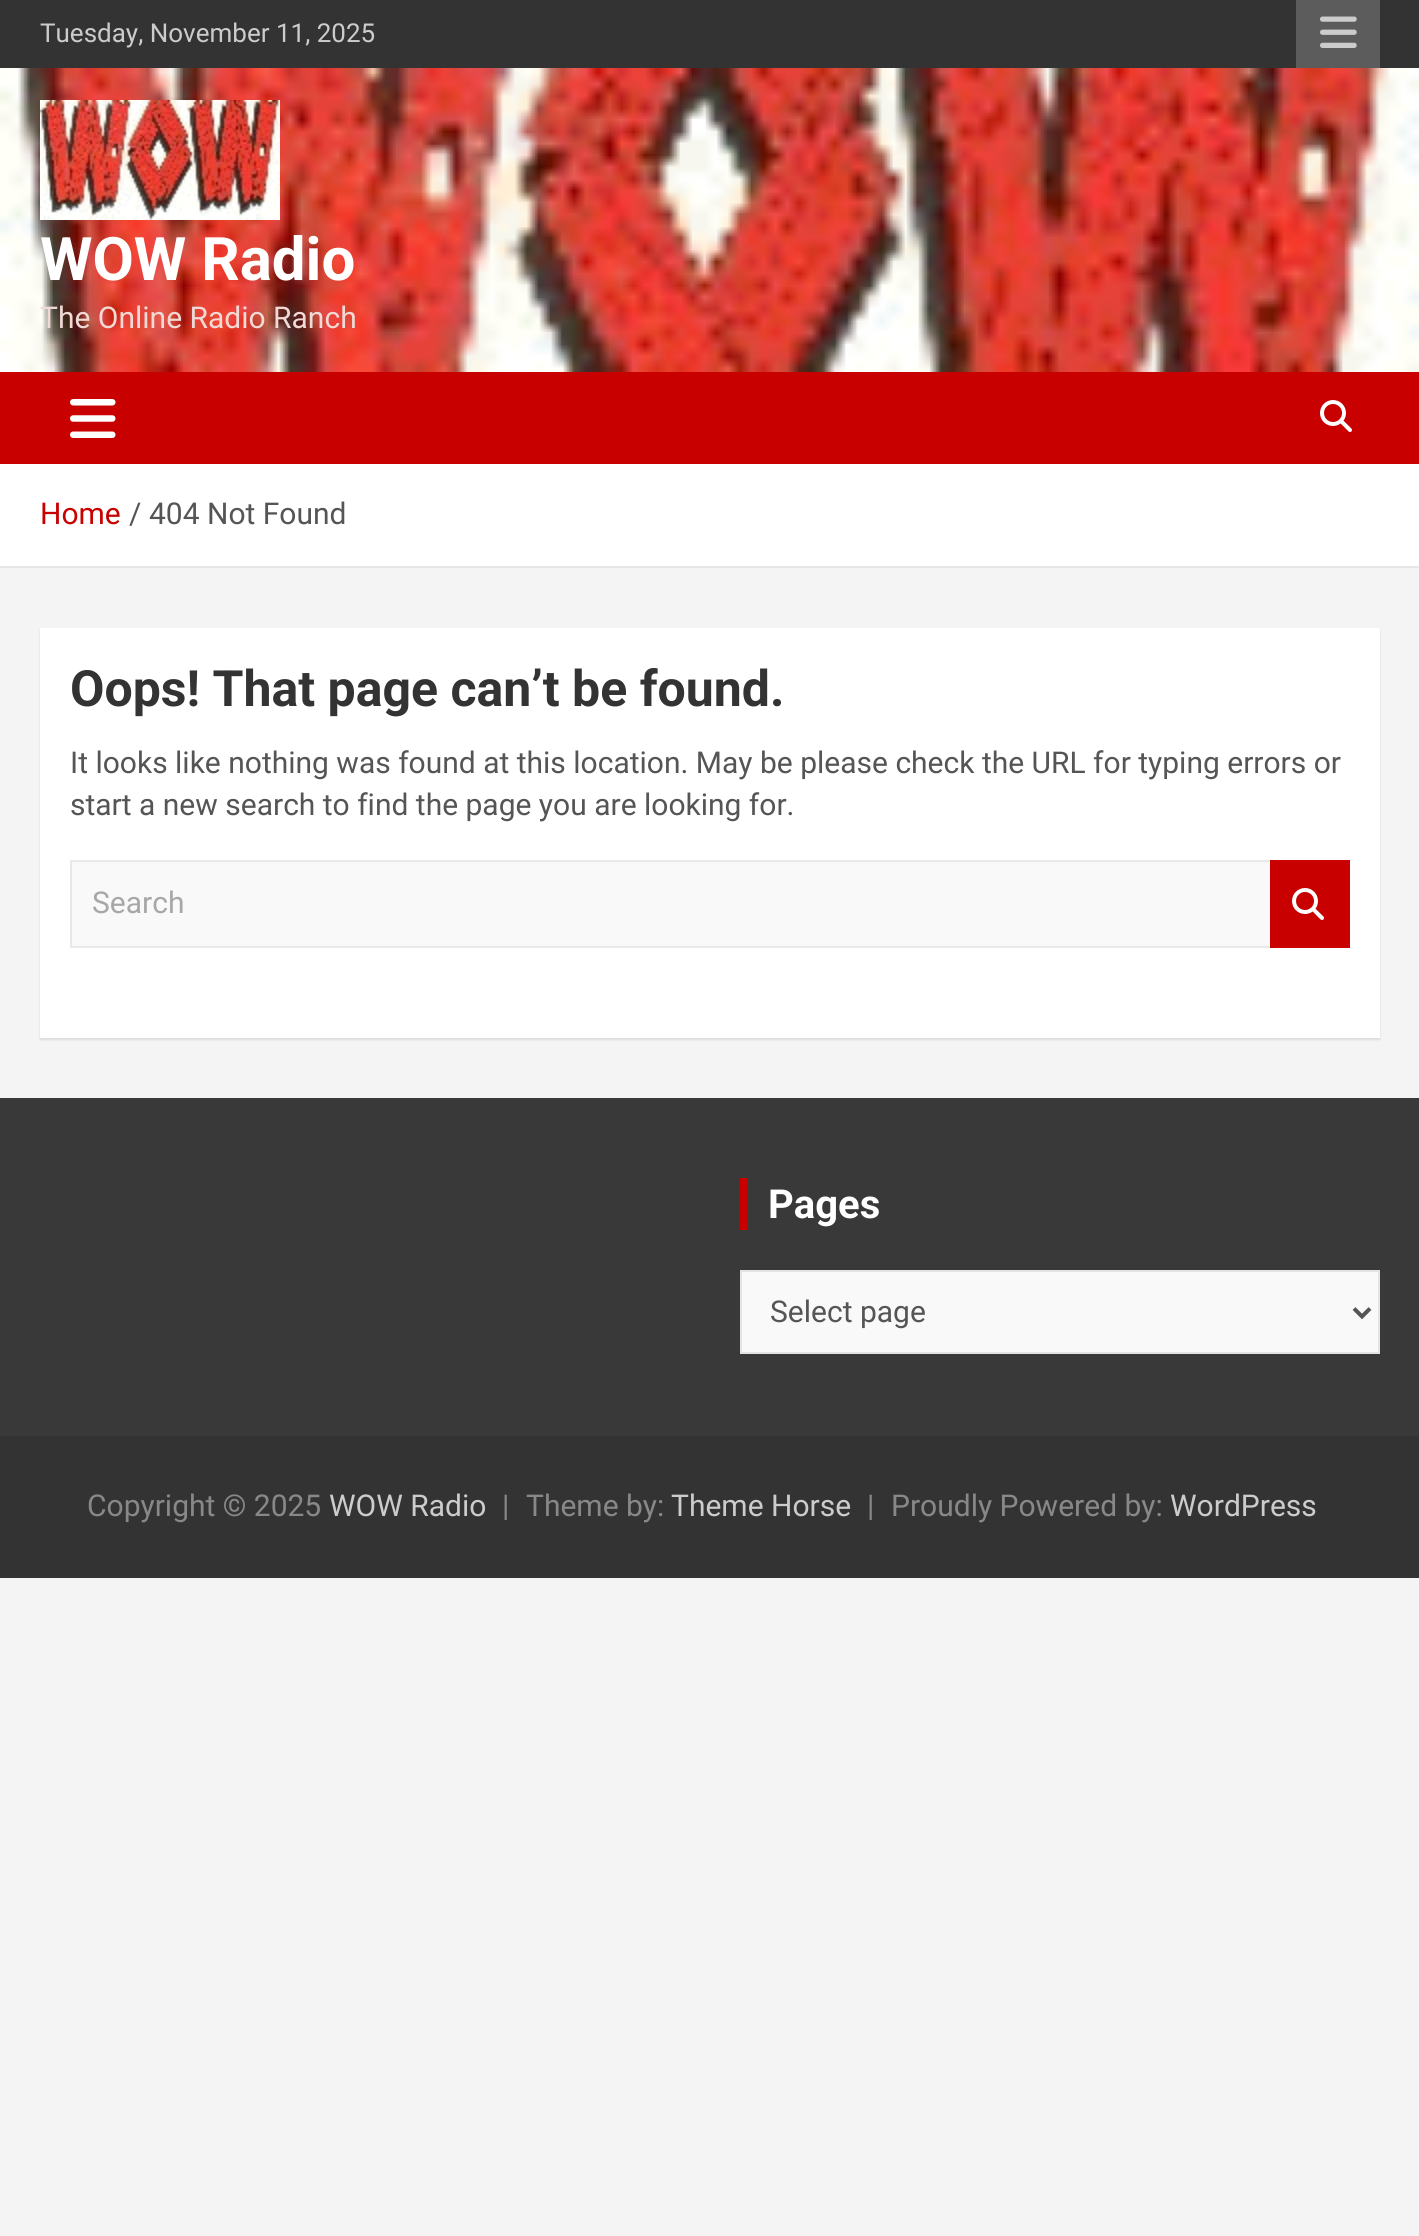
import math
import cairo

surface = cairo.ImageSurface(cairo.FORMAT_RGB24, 1419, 2236)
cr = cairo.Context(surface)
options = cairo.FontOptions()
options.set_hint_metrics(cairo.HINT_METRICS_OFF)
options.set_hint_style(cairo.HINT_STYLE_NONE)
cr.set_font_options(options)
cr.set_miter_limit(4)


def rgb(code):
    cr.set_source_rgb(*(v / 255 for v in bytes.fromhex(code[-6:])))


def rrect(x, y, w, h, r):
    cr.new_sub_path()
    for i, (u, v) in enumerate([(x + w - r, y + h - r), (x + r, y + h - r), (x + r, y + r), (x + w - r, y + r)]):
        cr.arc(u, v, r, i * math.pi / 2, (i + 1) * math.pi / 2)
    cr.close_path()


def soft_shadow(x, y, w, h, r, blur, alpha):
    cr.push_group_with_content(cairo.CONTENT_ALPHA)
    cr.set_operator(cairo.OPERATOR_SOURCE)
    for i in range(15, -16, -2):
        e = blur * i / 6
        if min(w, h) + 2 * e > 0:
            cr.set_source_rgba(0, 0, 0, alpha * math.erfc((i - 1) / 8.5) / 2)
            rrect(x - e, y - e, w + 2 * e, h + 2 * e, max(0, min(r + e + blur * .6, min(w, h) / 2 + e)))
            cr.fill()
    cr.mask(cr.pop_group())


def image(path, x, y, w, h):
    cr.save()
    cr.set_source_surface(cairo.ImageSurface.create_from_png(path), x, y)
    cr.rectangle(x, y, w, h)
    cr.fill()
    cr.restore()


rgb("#f4f4f4")
cr.paint()
rgb("#333333")
cr.rectangle(0, 0, 1419, 68)
cr.fill()
rgb("#5c5c5c")
cr.rectangle(1296, 0, 84, 68)
cr.fill()
image("img/1.png", 1320, 16, 37, 32)
image("img/2.png", 0, 68, 1419, 304)
image("img/3.png", 40, 100, 240, 120)
rgb("#c80000")
cr.rectangle(0, 372, 1419, 92)
cr.fill()
image("img/4.png", 70, 399, 46, 39)
image("img/5.png", 1320, 400, 32, 32)
rgb("#ffffff")
cr.rectangle(0, 464, 1419, 102)
cr.fill()
rgb("#e6e6e6")
cr.rectangle(0, 566, 1419, 2)
cr.fill()
rgb("#000000")
soft_shadow(40, 630, 1340, 410, 0, 1, 0.1)
rgb("#ffffff")
cr.rectangle(40, 628, 1340, 410)
cr.fill()
rgb("#f9f9f9")
cr.rectangle(72, 862, 1198, 84)
cr.fill()
rgb("#e8e8e8")
cr.new_path()
cr.move_to(70, 860)
cr.line_to(1270, 860)
cr.line_to(1270, 862)
cr.line_to(72, 862)
cr.close_path()
cr.fill()
cr.new_path()
cr.move_to(1270, 948)
cr.line_to(70, 948)
cr.line_to(72, 946)
cr.line_to(1270, 946)
cr.close_path()
cr.fill()
cr.set_source_rgba(0, 0, 0, 0.09)
cr.new_path()
cr.move_to(70, 948)
cr.line_to(70, 860)
cr.line_to(72, 862)
cr.line_to(72, 946)
cr.close_path()
cr.fill()
rgb("#c80000")
cr.rectangle(1270, 860, 80, 88)
cr.fill()
image("img/5.png", 1292, 888, 32, 32)
rgb("#393939")
cr.rectangle(0, 1098, 1419, 338)
cr.fill()
rgb("#c80000")
cr.rectangle(740, 1178, 8, 52)
cr.fill()
rgb("#f9f9f9")
cr.rectangle(741, 1271, 638, 82)
cr.fill_preserve()
rgb("#e3e3e3")
cr.stroke()
cr.new_path()
cr.move_to(1354, 1308.5)
cr.line_to(1362, 1316.5)
cr.line_to(1370, 1308.5)
rgb("#555555")
cr.set_line_width(4)
cr.stroke()
rgb("#333333")
cr.rectangle(0, 1436, 1419, 142)
cr.fill()
cr.select_font_face("Roboto")
cr.set_font_size(26)
rgb("#cccccc")
cr.move_to(40, 42)
cr.show_text("Tuesday, November 11, 2025")
cr.select_font_face("Roboto", cairo.FONT_SLANT_NORMAL, cairo.FONT_WEIGHT_BOLD)
cr.set_font_size(60)
rgb("#ffffff")
cr.move_to(40, 280)
cr.show_text("WOW Radio")
cr.select_font_face("Roboto")
cr.set_font_size(30)
rgb("#f1d9d6")
cr.move_to(40, 328)
cr.show_text("The Online Radio Ranch")
rgb("#c80000")
cr.move_to(40, 524)
cr.show_text("Home")
rgb("#555555")
cr.move_to(129, 524)
cr.show_text("/")
cr.move_to(149, 524)
cr.show_text("404 Not Found")
cr.select_font_face("Roboto", cairo.FONT_SLANT_NORMAL, cairo.FONT_WEIGHT_BOLD)
cr.set_font_size(50)
rgb("#333333")
cr.move_to(70, 706)
cr.show_text("Oops! That page can’t be found.")
cr.select_font_face("Roboto")
cr.set_font_size(30)
rgb("#555555")
cr.move_to(70, 773)
cr.show_text("It looks like nothing was found at this location. May be please check the URL for typing errors or")
cr.move_to(70, 815)
cr.show_text("start a new search to find the page you are looking for.")
rgb("#a7a7a7")
cr.move_to(92, 913)
cr.show_text("Search")
cr.select_font_face("Roboto", cairo.FONT_SLANT_NORMAL, cairo.FONT_WEIGHT_BOLD)
cr.set_font_size(40)
rgb("#ffffff")
cr.move_to(768, 1218)
cr.show_text("Pages")
cr.select_font_face("Roboto")
cr.set_font_size(30)
rgb("#555555")
cr.move_to(770, 1322)
cr.show_text("Select page")
rgb("#888888")
cr.move_to(87, 1516)
cr.show_text("Copyright © 2025")
rgb("#cccccc")
cr.move_to(329, 1516)
cr.show_text("WOW Radio")
rgb("#888888")
cr.move_to(502, 1516)
cr.show_text("|")
cr.move_to(526, 1516)
cr.show_text("Theme by:")
rgb("#cccccc")
cr.move_to(671, 1516)
cr.show_text("Theme Horse")
rgb("#888888")
cr.move_to(867, 1516)
cr.show_text("|")
cr.move_to(891, 1516)
cr.show_text("Proudly Powered by:")
rgb("#cccccc")
cr.move_to(1170, 1516)
cr.show_text("WordPress")
surface.write_to_png("page.png")
